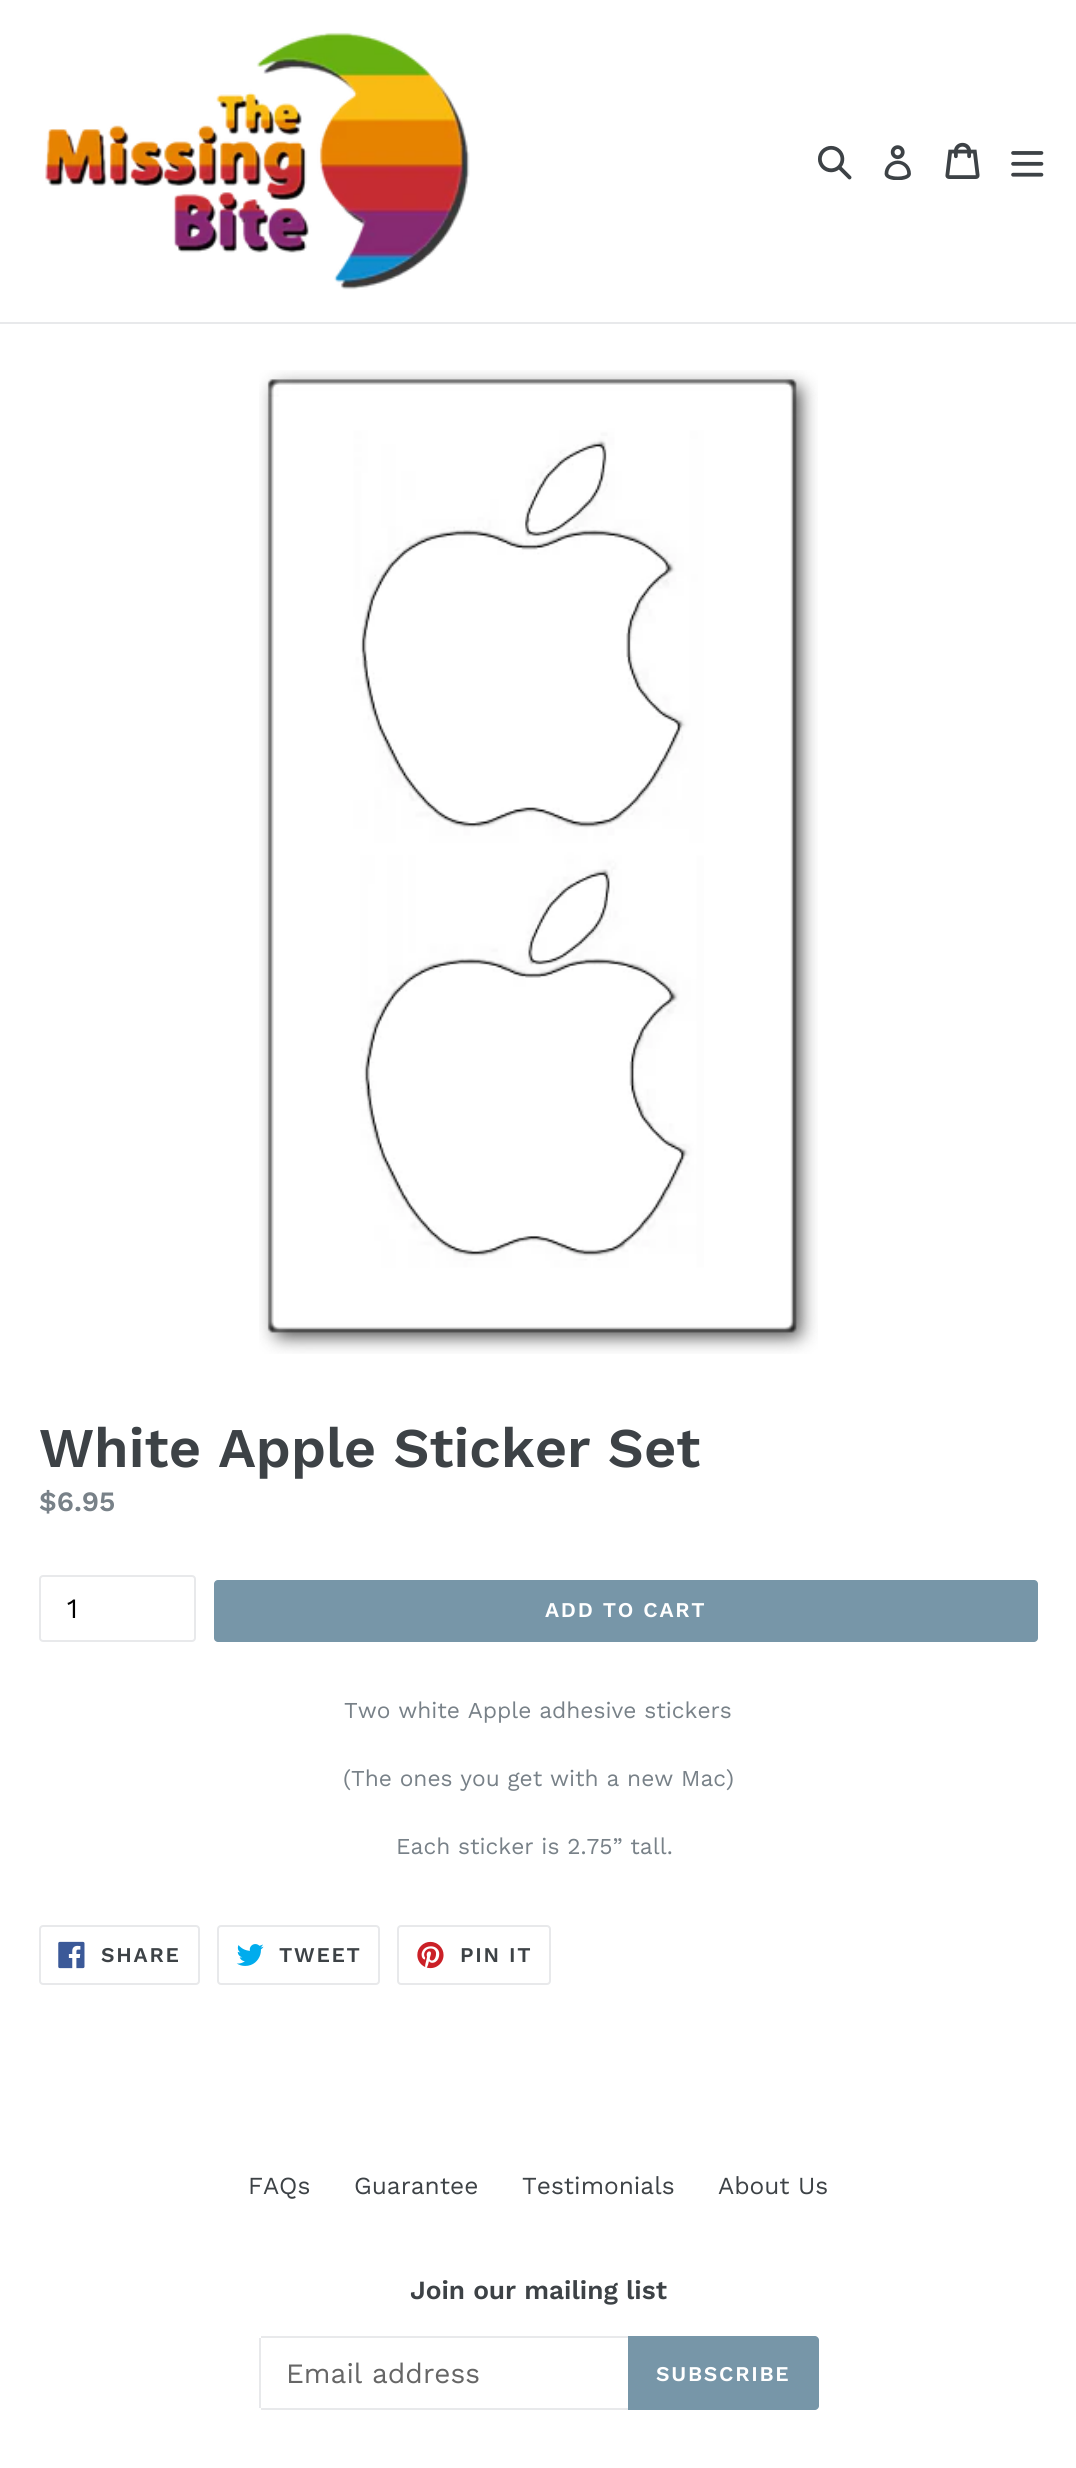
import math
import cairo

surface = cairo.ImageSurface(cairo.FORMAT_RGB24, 1076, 2468)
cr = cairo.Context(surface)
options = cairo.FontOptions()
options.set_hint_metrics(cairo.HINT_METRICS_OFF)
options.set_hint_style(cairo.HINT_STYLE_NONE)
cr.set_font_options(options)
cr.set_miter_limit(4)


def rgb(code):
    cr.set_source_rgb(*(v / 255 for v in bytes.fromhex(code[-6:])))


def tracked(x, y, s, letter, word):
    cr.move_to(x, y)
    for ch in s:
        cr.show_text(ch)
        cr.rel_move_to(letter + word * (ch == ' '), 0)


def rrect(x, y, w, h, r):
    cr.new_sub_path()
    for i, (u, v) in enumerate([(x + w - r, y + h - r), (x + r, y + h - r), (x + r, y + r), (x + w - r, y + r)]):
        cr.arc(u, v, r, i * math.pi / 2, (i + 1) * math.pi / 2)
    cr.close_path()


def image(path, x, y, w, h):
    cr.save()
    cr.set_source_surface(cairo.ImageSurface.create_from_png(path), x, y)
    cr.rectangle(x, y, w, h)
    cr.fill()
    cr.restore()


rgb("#ffffff")
cr.paint()
rgb("#e8e9eb")
cr.rectangle(0, 322, 1076, 2)
cr.fill()
image("img/1.png", 45, 32, 425, 258)
image("img/2.png", 818, 145, 34, 35)
image("img/3.png", 884, 145, 27, 35)
image("img/4.png", 945, 142, 35, 37)
image("img/5.png", 1011, 151, 33, 26)
image("img/6.png", 259, 370, 559, 984)
rrect(40, 1576, 155, 65, 3)
cr.stroke()
rgb("#7796a8")
rrect(214, 1580, 824, 62, 4)
cr.fill()
rrect(40, 1926, 159, 58, 3)
rgb("#e8e9eb")
cr.stroke()
image("img/7.png", 58, 1941, 27, 28)
rrect(218, 1926, 161, 58, 3)
cr.stroke()
image("img/8.png", 236, 1944, 28, 22)
rrect(398, 1926, 152, 58, 3)
cr.stroke()
image("img/9.png", 417, 1941, 27, 28)
for x, y, w, h, color in [
    (261, 2336, 367, 2, "#e8e9eb"),
    (261, 2408, 367, 2, "#e8e9eb"),
    (259, 2338, 2, 70, "#e8e9eb"),
]:
    rgb(color)
    cr.rectangle(x, y, w, h)
    cr.fill()
rgb("#7796a8")
cr.new_path()
cr.move_to(628, 2336)
cr.line_to(815, 2336)
cr.curve_to(817, 2336, 819, 2338, 819, 2340)
cr.line_to(819, 2406)
cr.curve_to(819, 2408, 817, 2410, 815, 2410)
cr.line_to(628, 2410)
cr.close_path()
cr.fill()
cr.select_font_face("Work Sans SemiBold")
cr.set_font_size(56)
rgb("#3d4246")
cr.move_to(39, 1467)
cr.show_text("White Apple Sticker Set")
cr.set_font_size(28)
rgb("#788188")
cr.move_to(39, 1511)
cr.show_text("$6.95")
cr.select_font_face("Work Sans")
rgb("#000000")
cr.move_to(67, 1618)
cr.show_text("1")
cr.select_font_face("Work Sans SemiBold")
cr.set_font_size(21)
rgb("#ffffff")
tracked(545, 1617, "ADD TO CART", 1.75, 0)
cr.select_font_face("Work Sans")
cr.set_font_size(22.75)
rgb("#788188")
for x, y, s in [
    (344, 1718, "Two white Apple adhesive stickers"),
    (343, 1786, "(The ones you get with a new Mac)"),
    (396, 1854, "Each sticker is 2.75” tall."),
]:
    cr.move_to(x, y)
    cr.show_text(s)
cr.select_font_face("Work Sans SemiBold")
cr.set_font_size(21)
rgb("#3d4246")
for x, y, s in [
    (101, 1962, "SHARE"),
    (279, 1962, "TWEET"),
    (460, 1962, "PIN IT"),
]:
    tracked(x, y, s, 1.75, 0)
cr.select_font_face("Work Sans")
cr.set_font_size(24.5)
for x, y, s in [
    (248, 2194, "FAQs"),
    (354, 2194, "Guarantee"),
    (522, 2194, "Testimonials"),
    (718, 2194, "About Us"),
]:
    cr.move_to(x, y)
    cr.show_text(s)
cr.select_font_face("Work Sans SemiBold")
cr.set_font_size(26.25)
cr.move_to(410, 2299)
cr.show_text("Join our mailing list")
cr.select_font_face("Work Sans")
cr.set_font_size(28)
rgb("#666666")
cr.move_to(286, 2383)
cr.show_text("Email address")
cr.select_font_face("Work Sans SemiBold")
cr.set_font_size(21)
rgb("#ffffff")
tracked(656, 2381, "SUBSCRIBE", 1.75, 0)
surface.write_to_png("page.png")
